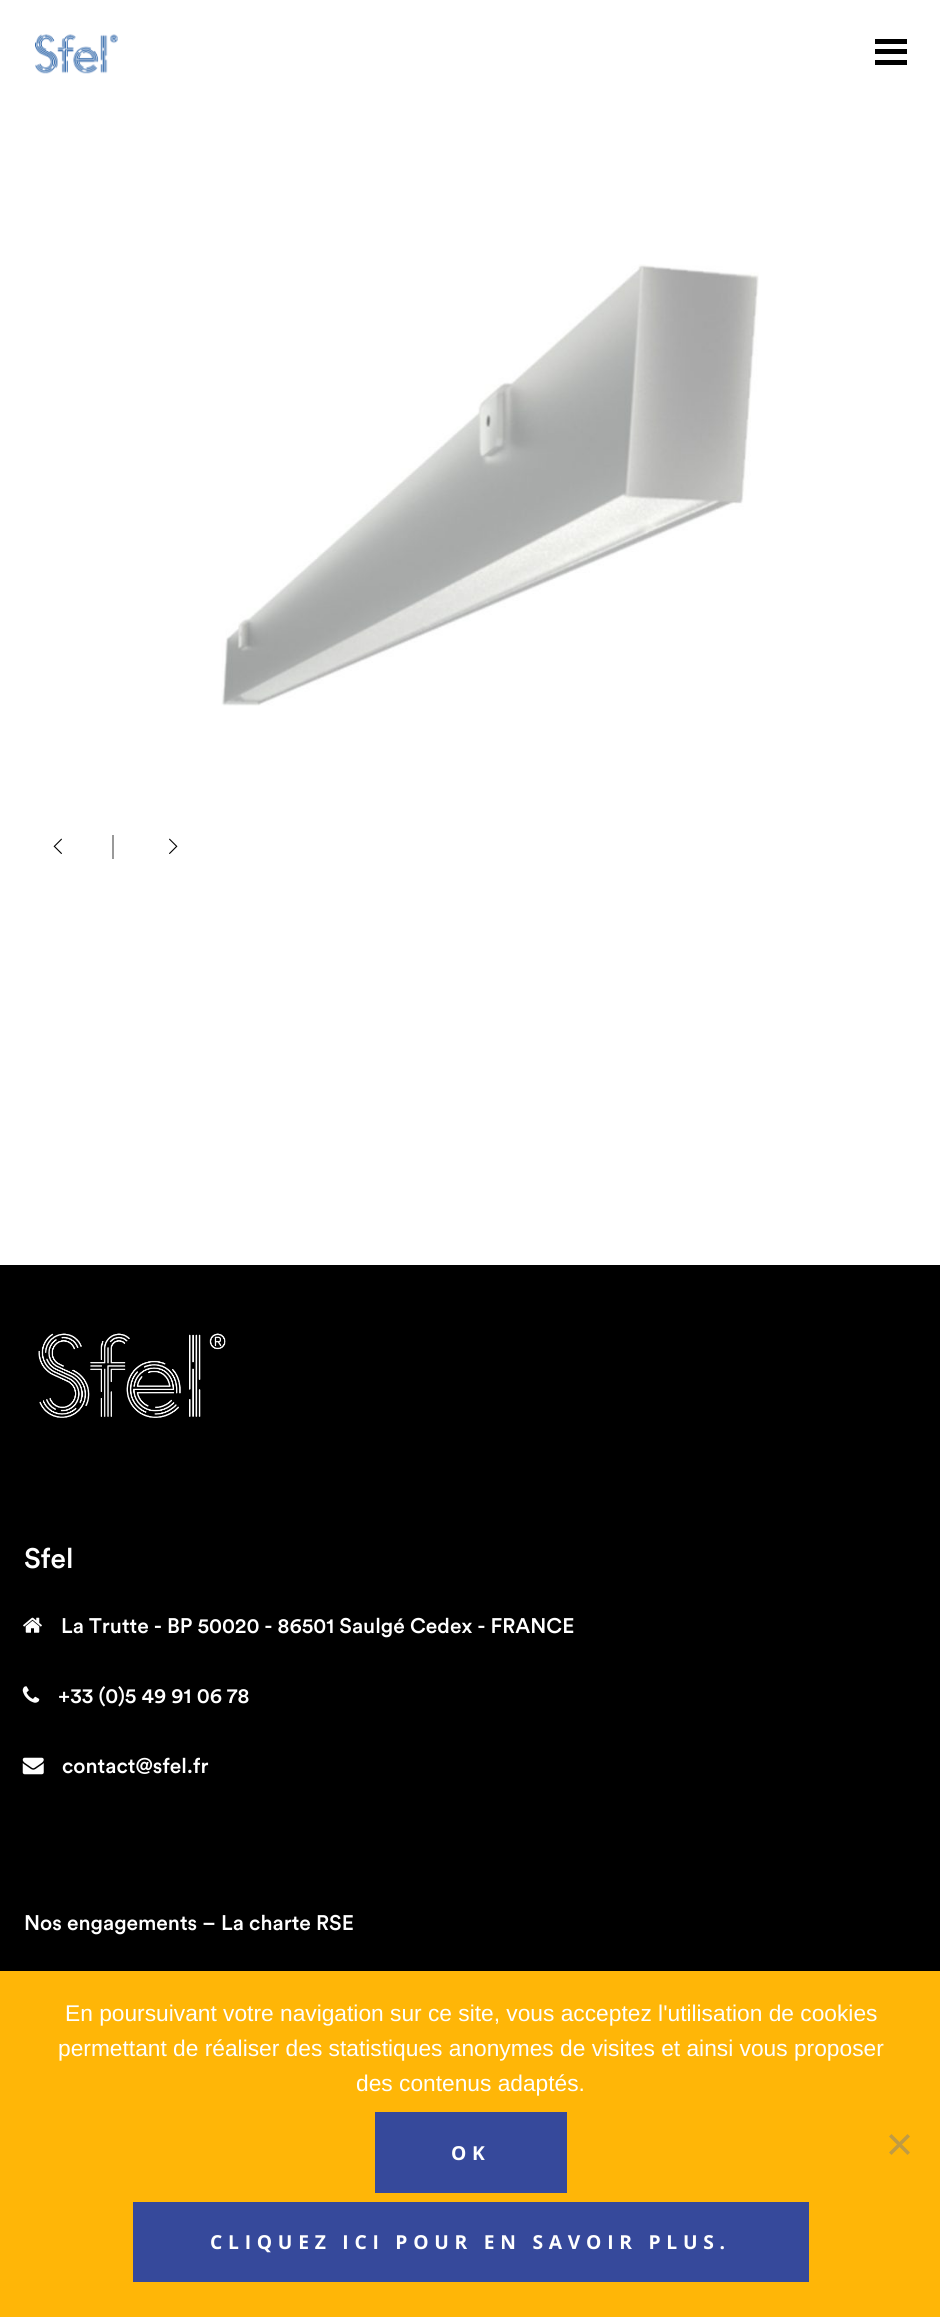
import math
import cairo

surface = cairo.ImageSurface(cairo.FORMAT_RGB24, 940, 2317)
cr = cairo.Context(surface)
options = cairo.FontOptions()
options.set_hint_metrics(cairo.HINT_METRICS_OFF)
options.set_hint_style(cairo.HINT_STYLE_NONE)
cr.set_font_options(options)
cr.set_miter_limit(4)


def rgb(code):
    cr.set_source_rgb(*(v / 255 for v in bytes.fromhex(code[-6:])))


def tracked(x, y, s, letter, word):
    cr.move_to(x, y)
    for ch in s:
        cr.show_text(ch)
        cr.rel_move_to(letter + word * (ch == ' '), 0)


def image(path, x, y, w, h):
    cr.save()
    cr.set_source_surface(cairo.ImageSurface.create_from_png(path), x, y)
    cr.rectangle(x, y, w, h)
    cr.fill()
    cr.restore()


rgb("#ffffff")
cr.paint()
image("img/1.png", 35, 34, 83, 40)
for x, y, w, h, color in [
    (875, 39, 32, 5, "#000000"),
    (875, 49, 32, 5, "#000000"),
    (875, 60, 32, 5, "#000000"),
]:
    rgb(color)
    cr.rectangle(x, y, w, h)
    cr.fill()
image("img/2.png", 221, 264, 538, 442)
image("img/3.png", 53, 838, 9, 16)
rgb("#999999")
cr.rectangle(112, 835, 2, 24)
cr.fill()
image("img/4.png", 169, 838, 9, 16)
rgb("#000000")
cr.rectangle(0, 1265, 940, 706)
cr.fill()
image("img/5.png", 38, 1333, 188, 85)
image("img/6.png", 23, 1617, 19, 16)
image("img/7.png", 22, 1686, 18, 17)
image("img/8.png", 22, 1757, 22, 18)
for x, y, w, h, color in [
    (0, 1971, 940, 346, "#ffb607"),
    (375, 2112, 192, 81, "#36499b"),
    (133, 2202, 676, 80, "#36499b"),
]:
    rgb(color)
    cr.rectangle(x, y, w, h)
    cr.fill()
rgb("#c09b44")
cr.new_path()
cr.move_to(907.5, 2134)
cr.line_to(910, 2136.5)
cr.line_to(891.5, 2155)
cr.line_to(889, 2152.5)
cr.close_path()
cr.fill()
cr.new_path()
cr.move_to(889, 2136.5)
cr.line_to(891.5, 2134)
cr.line_to(910, 2152.5)
cr.line_to(907.5, 2155)
cr.close_path()
cr.fill()
cr.select_font_face("Circular Medium")
cr.set_font_size(28)
rgb("#ffffff")
cr.move_to(24, 1568)
cr.show_text("Sfel")
cr.set_font_size(21)
for x, y, s in [
    (61, 1633, "La Trutte - BP 50020 - 86501 Saulgé Cedex - FRANCE"),
    (58, 1703, "+33 (0)5 49 91 06 78"),
    (62, 1773, "contact@sfel.fr"),
    (24, 1930, "Nos engagements – La charte RSE"),
]:
    cr.move_to(x, y)
    cr.show_text(s)
cr.select_font_face("Liberation Sans")
cr.set_font_size(22.75)
for x, y, s in [
    (65, 2021, "En poursuivant votre navigation sur ce site, vous acceptez l'utilisation de cookies"),
    (58, 2056, "permettant de réaliser des statistiques anonymes de visites et ainsi vous proposer"),
    (356, 2091, "des contenus adaptés."),
]:
    cr.move_to(x, y)
    cr.show_text(s)
cr.select_font_face("Open Sans", cairo.FONT_SLANT_NORMAL, cairo.FONT_WEIGHT_BOLD)
cr.set_font_size(19.25)
tracked(451, 2160, "OK", 5.75, 0)
tracked(210, 2249, "CLIQUEZ ICI POUR EN SAVOIR PLUS.", 5.75, 0)
surface.write_to_png("page.png")
